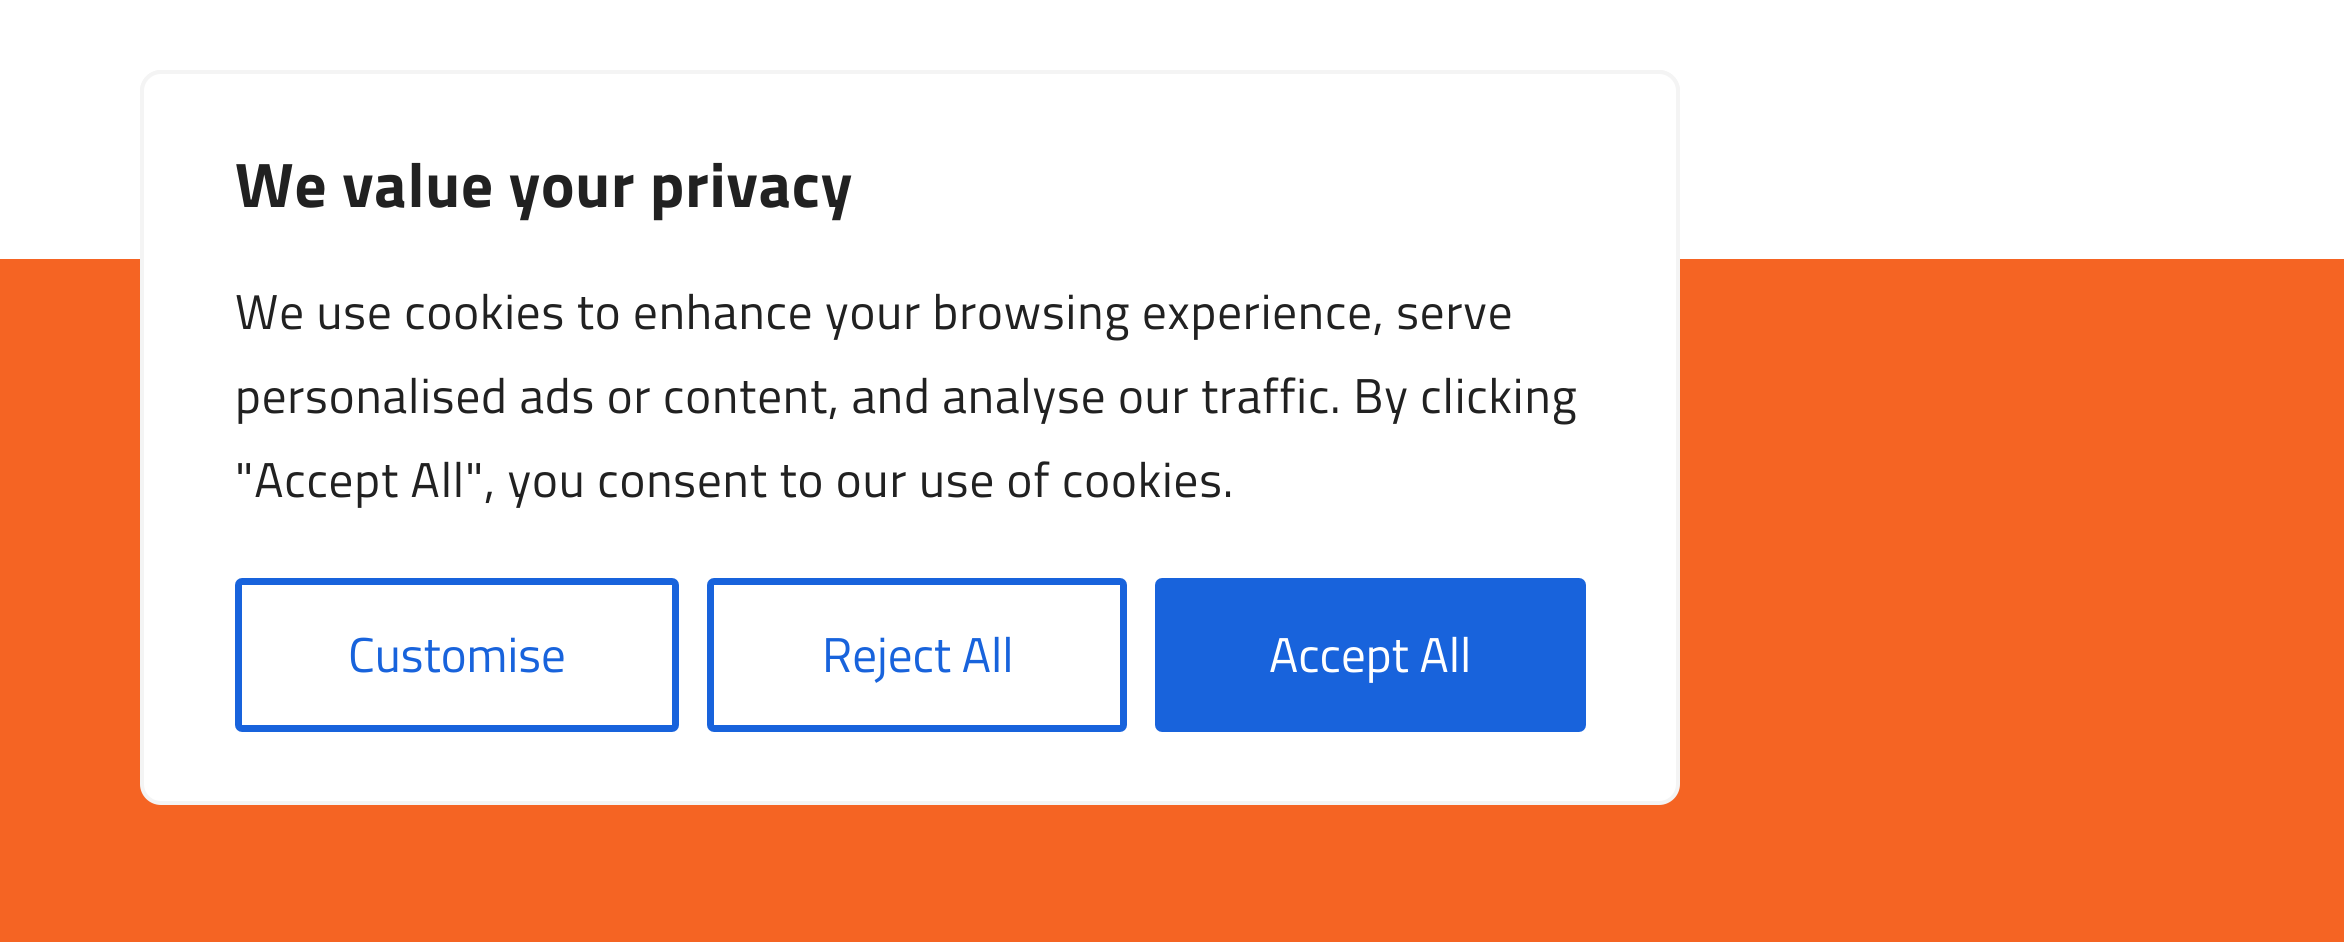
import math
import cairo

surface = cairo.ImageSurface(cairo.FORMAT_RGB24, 2344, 942)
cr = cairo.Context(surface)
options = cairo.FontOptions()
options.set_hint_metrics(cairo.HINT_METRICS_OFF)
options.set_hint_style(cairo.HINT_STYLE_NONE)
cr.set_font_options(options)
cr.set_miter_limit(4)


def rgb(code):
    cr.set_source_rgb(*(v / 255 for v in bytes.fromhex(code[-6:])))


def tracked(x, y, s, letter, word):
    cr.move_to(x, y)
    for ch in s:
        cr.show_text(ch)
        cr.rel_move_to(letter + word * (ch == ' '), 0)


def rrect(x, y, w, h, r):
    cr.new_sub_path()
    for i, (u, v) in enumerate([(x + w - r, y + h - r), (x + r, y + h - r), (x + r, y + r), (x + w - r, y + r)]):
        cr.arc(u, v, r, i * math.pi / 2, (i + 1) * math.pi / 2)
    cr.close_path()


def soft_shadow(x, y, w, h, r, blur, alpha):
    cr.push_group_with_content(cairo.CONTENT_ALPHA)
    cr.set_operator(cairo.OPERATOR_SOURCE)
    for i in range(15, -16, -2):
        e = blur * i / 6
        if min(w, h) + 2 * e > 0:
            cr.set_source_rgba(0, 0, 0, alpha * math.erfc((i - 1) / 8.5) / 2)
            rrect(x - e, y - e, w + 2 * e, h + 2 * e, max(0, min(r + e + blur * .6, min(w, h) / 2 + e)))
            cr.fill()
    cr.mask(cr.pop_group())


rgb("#ffffff")
cr.paint()
rgb("#f56423")
cr.rectangle(0, 259, 2344, 683)
cr.fill()
cr.save()
rrect(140, 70, 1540, 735, 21)
cr.clip()
rgb("#acabab")
soft_shadow(140, 67, 1540, 735, 21, 17.5, 0.3)
cr.restore()
rgb("#ffffff")
rrect(142, 72, 1536, 731, 19)
cr.fill_preserve()
rgb("#f4f4f4")
cr.set_line_width(4)
cr.stroke()
rrect(238.5, 581.5, 437, 147, 3.5)
rgb("#1863dc")
cr.set_line_width(7)
cr.stroke()
rrect(710.5, 581.5, 413, 147, 3.5)
cr.stroke()
rrect(1158.5, 581.5, 424, 147, 3.5)
cr.fill_preserve()
cr.stroke()
cr.select_font_face("Titillium Web", cairo.FONT_SLANT_NORMAL, cairo.FONT_WEIGHT_BOLD)
cr.set_font_size(63)
rgb("#212121")
tracked(235, 207, "We value your privacy", 0.85, 0)
cr.select_font_face("Titillium Web")
cr.set_font_size(49)
for x, y, s in [
    (235, 329, "We use cookies to enhance your browsing experience, serve"),
    (235, 413, "personalised ads or content, and analyse our traffic. By clicking"),
    (235, 497, "\"Accept All\", you consent to our use of cookies."),
]:
    tracked(x, y, s, 0.85, 0)
rgb("#1863dc")
cr.move_to(348, 672)
cr.show_text("Customise")
cr.move_to(822, 672)
cr.show_text("Reject All")
rgb("#ffffff")
cr.move_to(1269, 672)
cr.show_text("Accept All")
surface.write_to_png("page.png")
